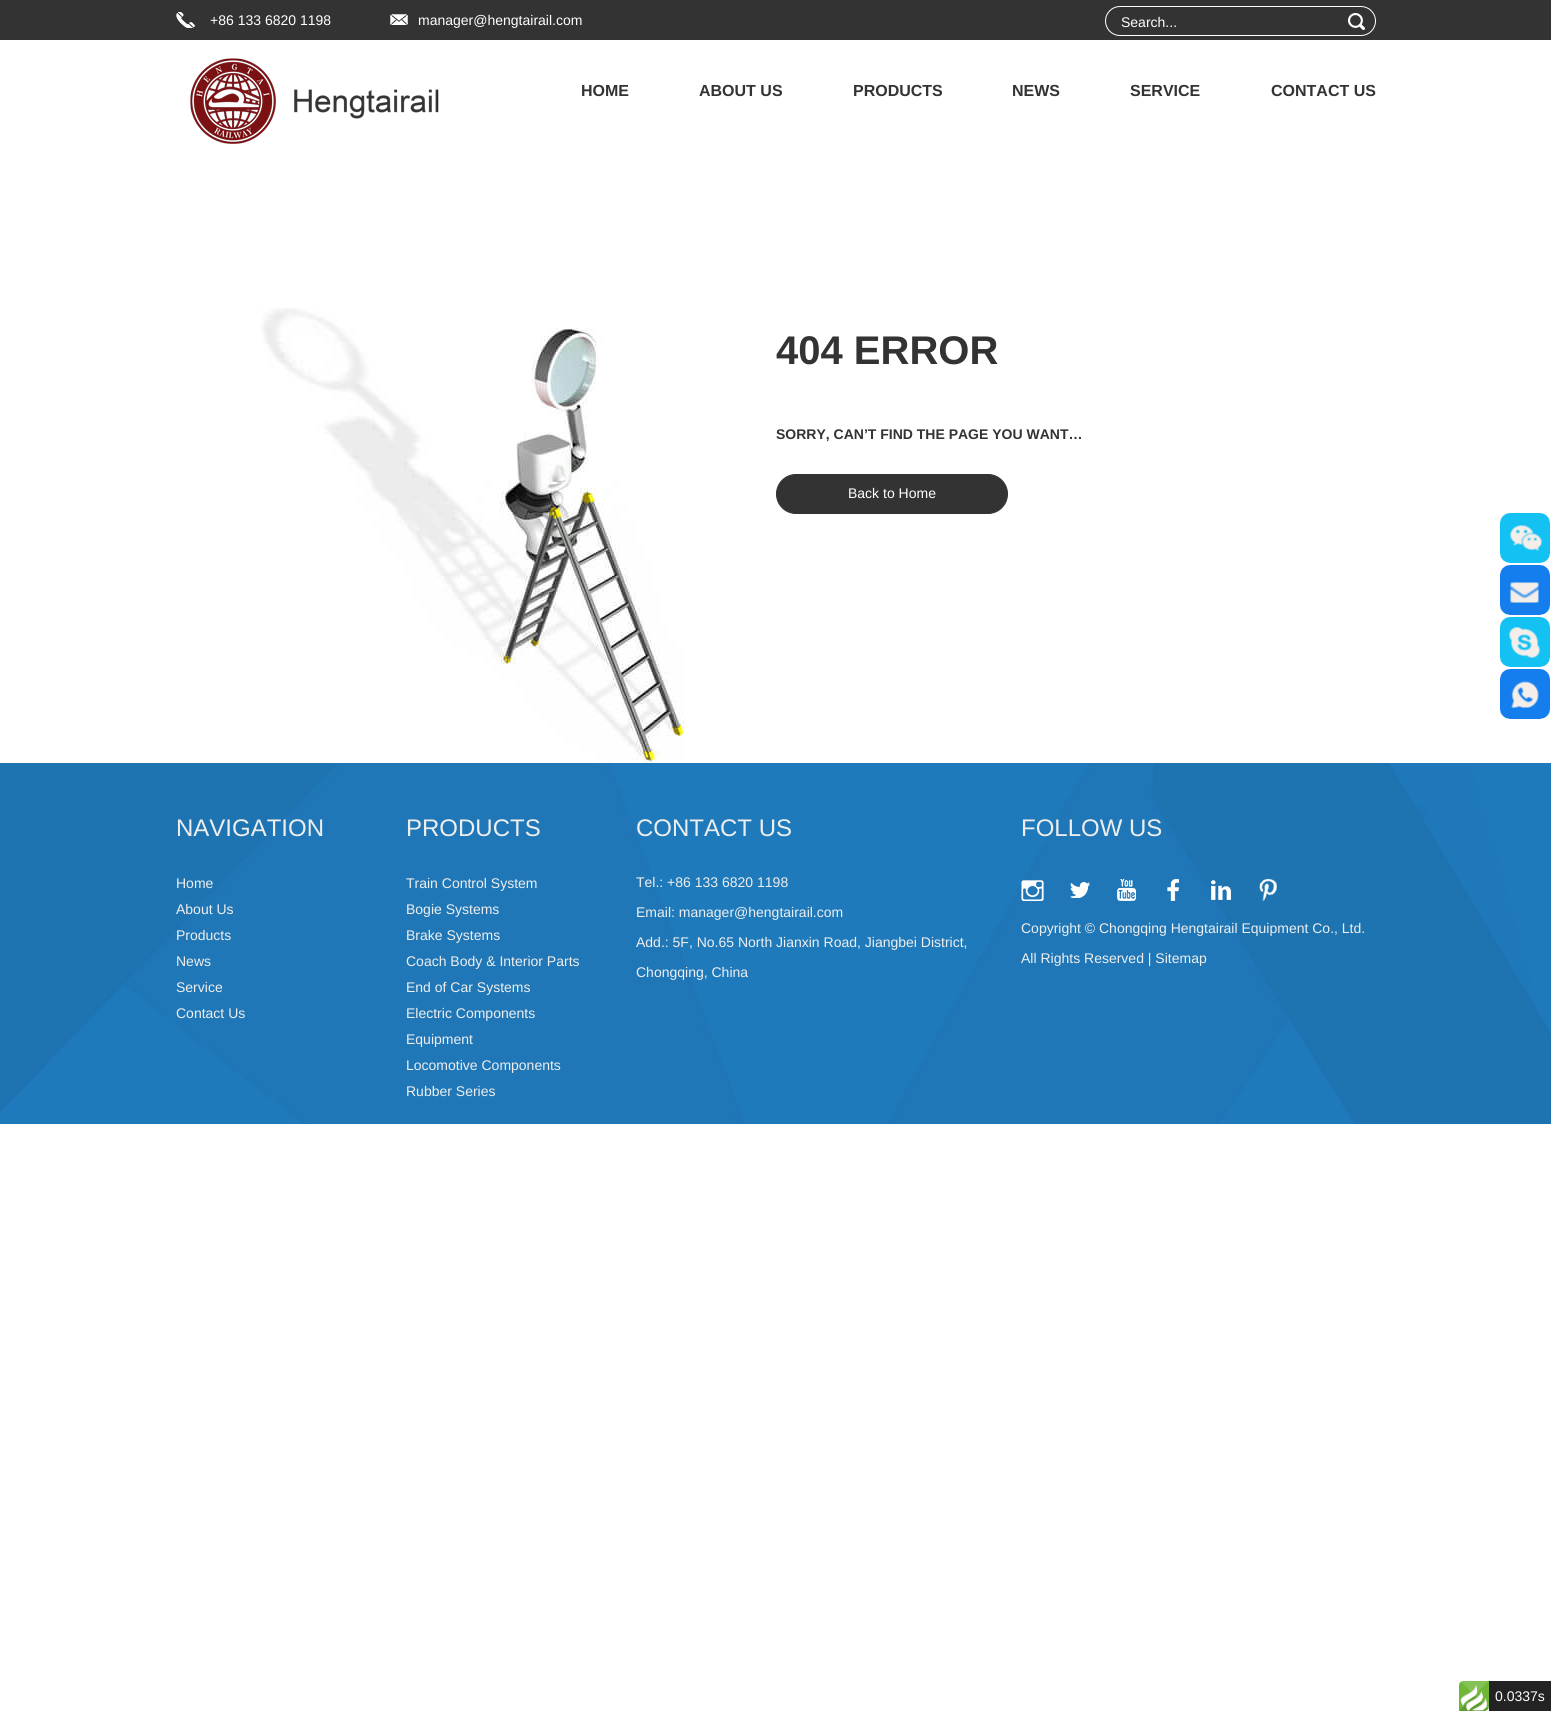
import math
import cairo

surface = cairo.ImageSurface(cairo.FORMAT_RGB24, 1551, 1711)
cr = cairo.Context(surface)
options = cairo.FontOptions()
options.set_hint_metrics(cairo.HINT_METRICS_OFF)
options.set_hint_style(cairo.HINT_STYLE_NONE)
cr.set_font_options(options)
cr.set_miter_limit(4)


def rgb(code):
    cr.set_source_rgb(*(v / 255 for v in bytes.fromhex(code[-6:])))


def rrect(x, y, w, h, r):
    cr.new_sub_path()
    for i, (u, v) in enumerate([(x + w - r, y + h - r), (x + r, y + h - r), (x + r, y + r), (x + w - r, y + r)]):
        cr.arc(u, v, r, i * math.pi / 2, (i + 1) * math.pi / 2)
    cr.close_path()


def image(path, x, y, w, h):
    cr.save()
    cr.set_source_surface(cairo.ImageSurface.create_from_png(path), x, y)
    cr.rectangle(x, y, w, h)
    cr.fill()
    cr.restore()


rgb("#ffffff")
cr.paint()
rgb("#333333")
cr.rectangle(0, 0, 1551, 40)
cr.fill()
image("img/1.png", 176, 12, 19, 16)
image("img/2.png", 390, 14, 18, 11)
rrect(1105.5, 6.5, 270, 29, 14.5)
rgb("#ffffff")
cr.set_line_width(1)
cr.stroke()
image("img/3.png", 1348, 13, 17, 17)
image("img/4.png", 190, 58, 249, 86)
image("img/5.png", 260, 308, 424, 455)
rgb("#333333")
rrect(776.5, 474.5, 231, 39, 19.5)
cr.fill_preserve()
cr.stroke()
image("img/6.png", 1500, 513, 50, 50)
image("img/7.png", 1500, 565, 50, 50)
image("img/8.png", 1500, 617, 50, 50)
image("img/9.png", 1500, 669, 50, 50)
image("img/10.png", 0, 763, 1551, 361)
image("img/11.png", 1021, 880, 23, 21)
image("img/12.png", 1070, 882, 20, 16)
image("img/13.png", 1117, 879, 19, 22)
image("img/14.png", 1167, 879, 12, 22)
image("img/15.png", 1211, 880, 20, 20)
image("img/16.png", 1259, 879, 18, 22)
image("img/17.png", 1459, 1681, 30, 30)
rgb("#232323")
cr.rectangle(1489, 1681, 62, 30)
cr.fill()
cr.select_font_face("Liberation Sans")
cr.set_font_size(14)
rgb("#ffffff")
for x, y, s in [
    (210, 25, "+86 133 6820 1198"),
    (418, 25, "manager@hengtairail.com"),
    (1121, 27, "Search..."),
]:
    cr.move_to(x, y)
    cr.show_text(s)
cr.select_font_face("Liberation Sans", cairo.FONT_SLANT_NORMAL, cairo.FONT_WEIGHT_BOLD)
cr.set_font_size(16)
rgb("#333333")
for x, y, s in [
    (581, 96, "HOME"),
    (699, 96, "ABOUT US"),
    (853, 96, "PRODUCTS"),
    (1012, 96, "NEWS"),
    (1130, 96, "SERVICE"),
    (1271, 96, "CONTACT US"),
]:
    cr.move_to(x, y)
    cr.show_text(s)
cr.set_font_size(40)
cr.move_to(776, 364)
cr.show_text("404 ERROR")
cr.set_font_size(14)
cr.move_to(776, 439)
cr.show_text("SORRY, CAN’T FIND THE PAGE YOU WANT…")
cr.select_font_face("Liberation Sans")
rgb("#ffffff")
cr.move_to(848, 498)
cr.show_text("Back to Home")
cr.set_font_size(24)
rgb("#eeeeee")
cr.move_to(176, 836)
cr.show_text("NAVIGATION")
cr.set_font_size(14)
for x, y, s in [
    (176, 888, "Home"),
    (176, 914, "About Us"),
    (176, 940, "Products"),
    (176, 966, "News"),
    (176, 992, "Service"),
    (176, 1018, "Contact Us"),
]:
    cr.move_to(x, y)
    cr.show_text(s)
cr.set_font_size(24)
cr.move_to(406, 836)
cr.show_text("PRODUCTS")
cr.set_font_size(14)
for x, y, s in [
    (406, 888, "Train Control System"),
    (406, 914, "Bogie Systems"),
    (406, 940, "Brake Systems"),
    (406, 966, "Coach Body & Interior Parts"),
    (406, 992, "End of Car Systems"),
    (406, 1018, "Electric Components"),
    (406, 1044, "Equipment"),
    (406, 1070, "Locomotive Components"),
    (406, 1096, "Rubber Series"),
]:
    cr.move_to(x, y)
    cr.show_text(s)
cr.set_font_size(24)
cr.move_to(636, 836)
cr.show_text("CONTACT US")
cr.set_font_size(14)
for x, y, s in [
    (636, 887, "Tel.: +86 133 6820 1198"),
    (636, 917, "Email: manager@hengtairail.com"),
    (636, 947, "Add.: 5F, No.65 North Jianxin Road, Jiangbei District,"),
    (636, 977, "Chongqing, China"),
]:
    cr.move_to(x, y)
    cr.show_text(s)
cr.set_font_size(24)
cr.move_to(1021, 836)
cr.show_text("FOLLOW US")
cr.set_font_size(14)
cr.move_to(1021, 933)
cr.show_text("Copyright © Chongqing Hengtairail Equipment Co., Ltd.")
cr.move_to(1021, 963)
cr.show_text("All Rights Reserved | Sitemap")
rgb("#ffffff")
cr.move_to(1495, 1701)
cr.show_text("0.0337s")
surface.write_to_png("page.png")
